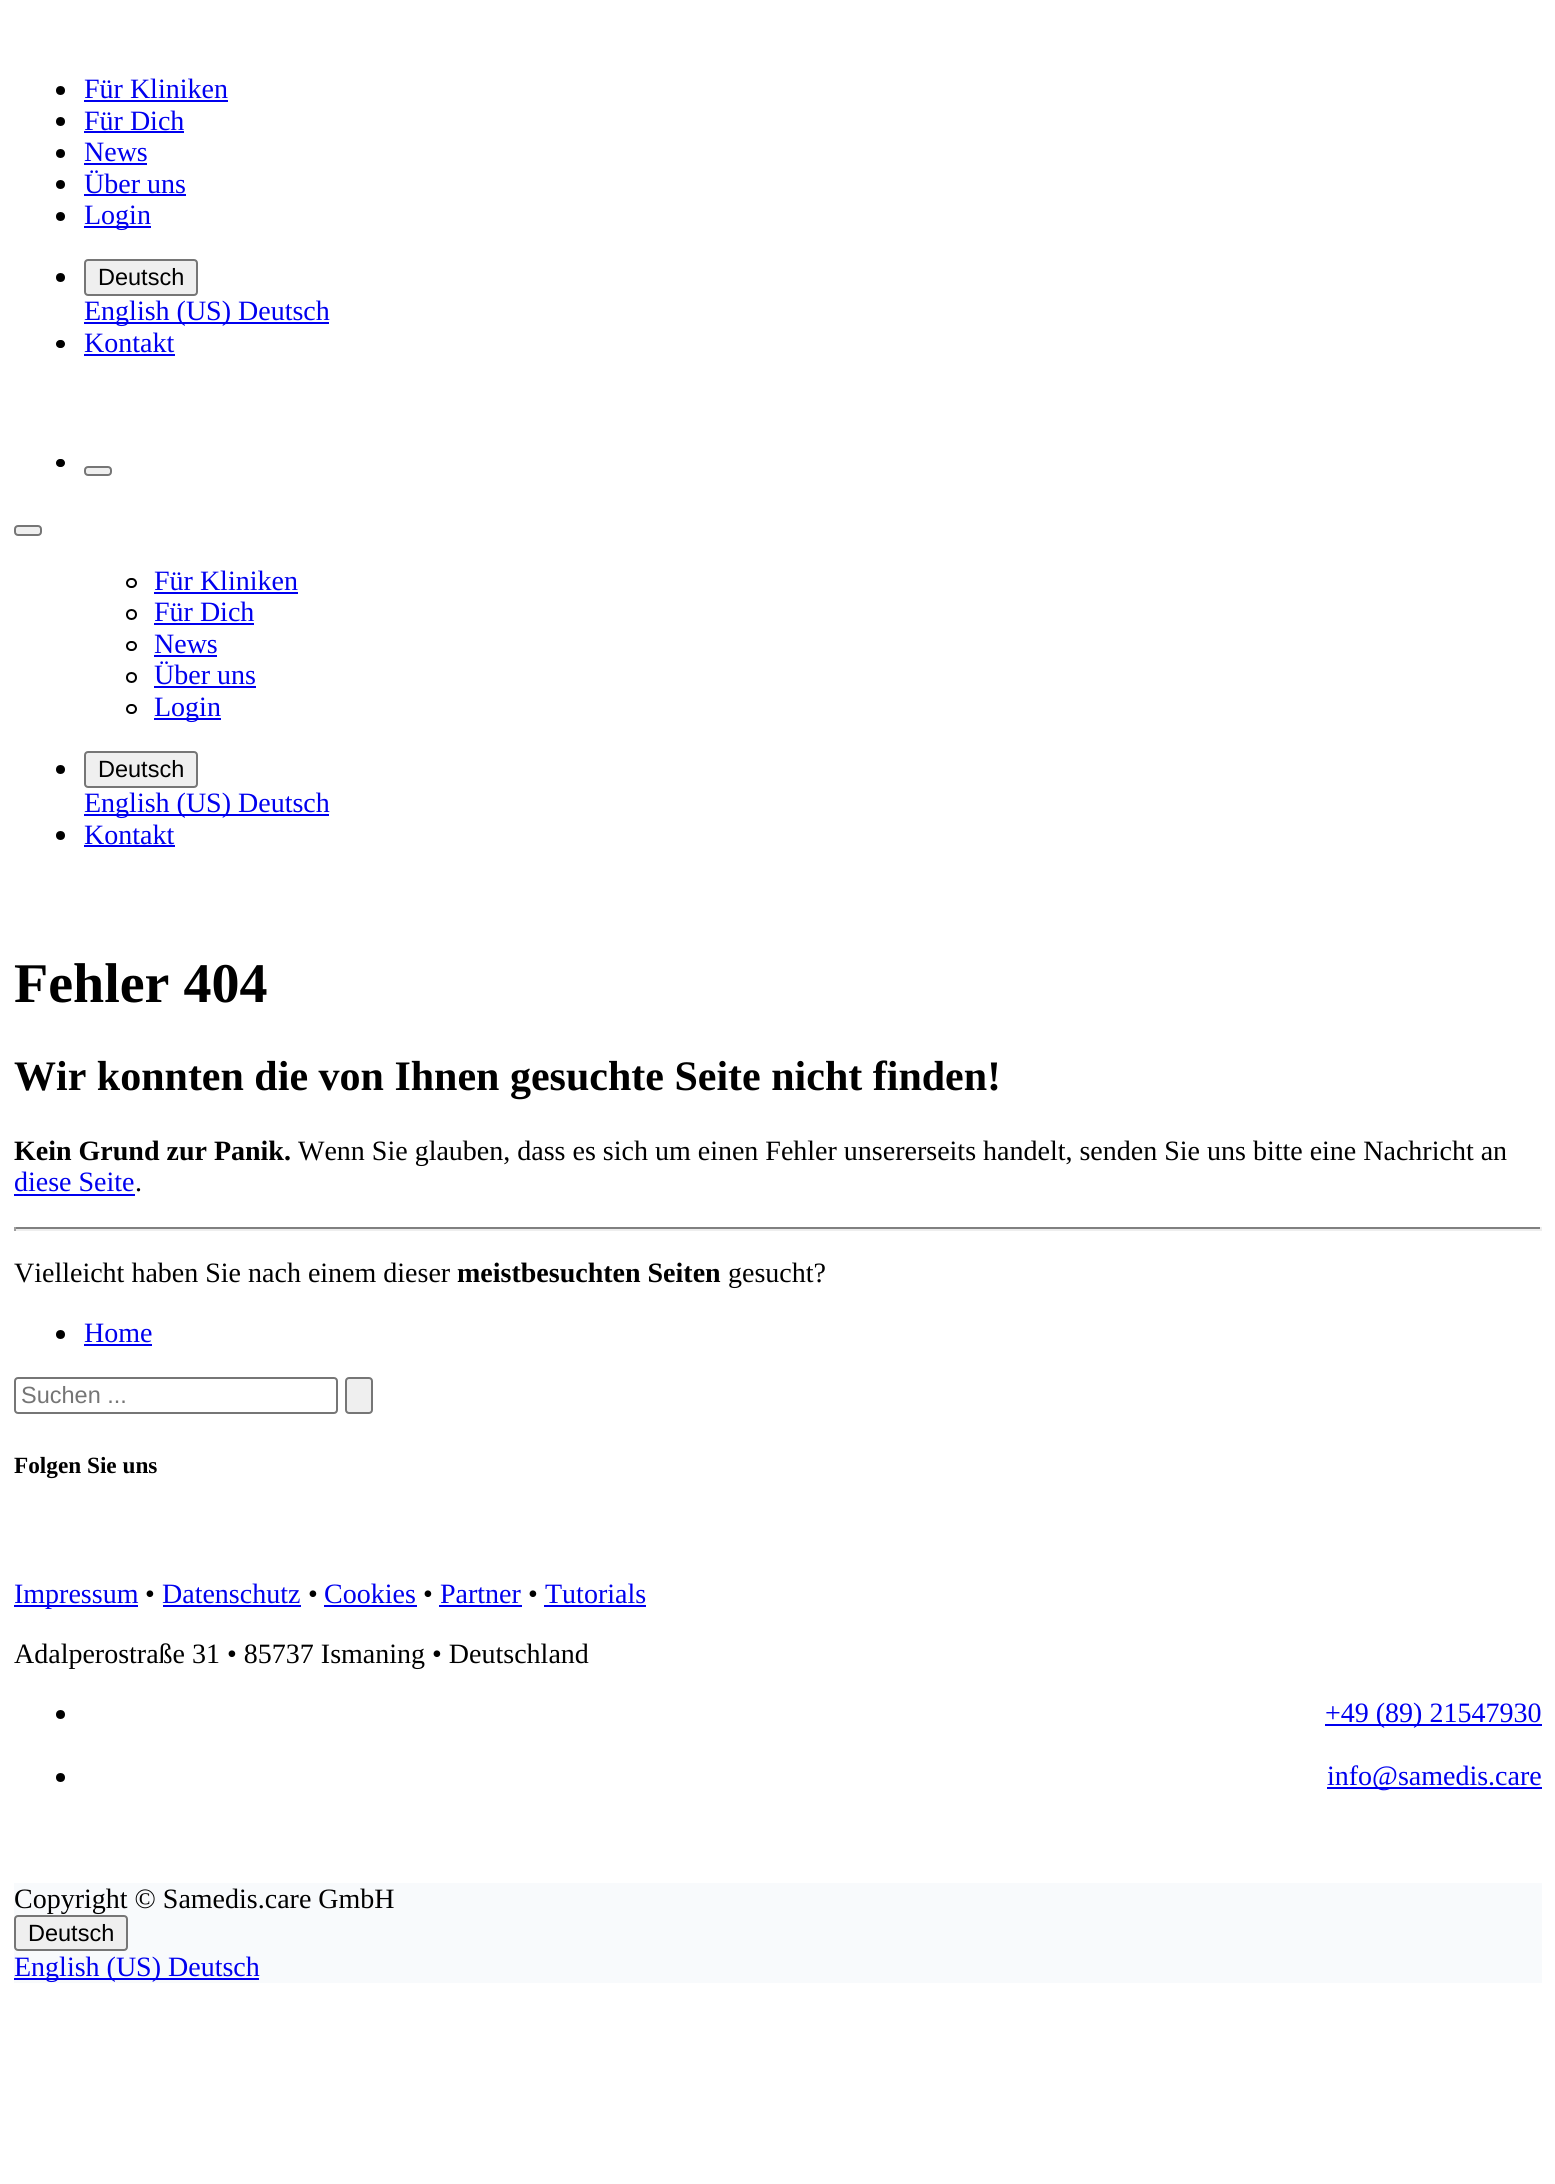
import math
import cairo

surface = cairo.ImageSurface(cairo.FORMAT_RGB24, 1555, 2184)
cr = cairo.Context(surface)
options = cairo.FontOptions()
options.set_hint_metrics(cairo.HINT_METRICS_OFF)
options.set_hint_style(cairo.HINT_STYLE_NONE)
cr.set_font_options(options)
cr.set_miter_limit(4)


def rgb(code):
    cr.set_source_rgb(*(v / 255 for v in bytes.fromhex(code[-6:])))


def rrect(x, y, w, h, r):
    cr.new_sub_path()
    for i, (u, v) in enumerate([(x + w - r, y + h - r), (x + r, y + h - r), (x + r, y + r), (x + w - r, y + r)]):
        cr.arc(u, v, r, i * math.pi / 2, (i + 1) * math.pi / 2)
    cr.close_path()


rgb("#ffffff")
cr.paint()
rgb("#000000")
cr.arc(60.5, 90.5, 4.5, 0, 2 * math.pi)
cr.fill()
rgb("#0000ee")
cr.rectangle(84, 100, 144, 2)
cr.fill()
rgb("#000000")
cr.arc(60.5, 121.5, 4.5, 0, 2 * math.pi)
cr.fill()
rgb("#0000ee")
cr.rectangle(84, 131, 100, 2)
cr.fill()
rgb("#000000")
cr.arc(60.5, 153.5, 4.5, 0, 2 * math.pi)
cr.fill()
rgb("#0000ee")
cr.rectangle(84, 163, 63, 2)
cr.fill()
rgb("#000000")
cr.arc(60.5, 184.5, 4.5, 0, 2 * math.pi)
cr.fill()
rgb("#0000ee")
cr.rectangle(84, 194, 102, 2)
cr.fill()
rgb("#000000")
cr.arc(60.5, 216.5, 4.5, 0, 2 * math.pi)
cr.fill()
rgb("#0000ee")
cr.rectangle(84, 226, 67, 2)
cr.fill()
rgb("#000000")
cr.arc(60.5, 277.5, 4.5, 0, 2 * math.pi)
cr.fill()
rgb("#efefef")
rrect(85, 260, 112, 35, 3)
cr.fill_preserve()
rgb("#767676")
cr.stroke()
rgb("#0000ee")
cr.rectangle(84, 322, 245, 2)
cr.fill()
rgb("#000000")
rrect(56, 340, 9, 8, 4)
cr.fill()
rgb("#0000ee")
cr.rectangle(84, 354, 91, 2)
cr.fill()
rgb("#000000")
rrect(56, 459, 9, 8, 4)
cr.fill()
rgb("#efefef")
rrect(85, 467, 26, 8, 3)
cr.fill_preserve()
rgb("#767676")
cr.stroke()
rgb("#efefef")
rrect(15, 526, 26, 9, 3)
cr.fill_preserve()
rgb("#767676")
cr.stroke()
rrect(127, 579, 9, 8, 4)
rgb("#000000")
cr.stroke()
rgb("#0000ee")
cr.rectangle(154, 592, 144, 2)
cr.fill()
cr.arc(131.5, 614.5, 4.5, 0, 2 * math.pi)
rgb("#000000")
cr.stroke()
rgb("#0000ee")
cr.rectangle(154, 623, 100, 2)
cr.fill()
rrect(127, 642, 9, 8, 4)
rgb("#000000")
cr.stroke()
rgb("#0000ee")
cr.rectangle(154, 655, 63, 2)
cr.fill()
cr.arc(131.5, 677.5, 4.5, 0, 2 * math.pi)
rgb("#000000")
cr.stroke()
rgb("#0000ee")
cr.rectangle(154, 686, 102, 2)
cr.fill()
rrect(127, 705, 9, 8, 4)
rgb("#000000")
cr.stroke()
rgb("#0000ee")
cr.rectangle(154, 718, 67, 2)
cr.fill()
rgb("#000000")
cr.arc(60.5, 769.5, 4.5, 0, 2 * math.pi)
cr.fill()
rgb("#efefef")
rrect(85, 752, 112, 35, 3)
cr.fill_preserve()
rgb("#767676")
cr.stroke()
rgb("#0000ee")
cr.rectangle(84, 814, 245, 2)
cr.fill()
rgb("#000000")
cr.arc(60.5, 835.5, 4.5, 0, 2 * math.pi)
cr.fill()
for x, y, w, h, color in [
    (84, 845, 91, 2, "#0000ee"),
    (14, 1194, 121, 2, "#0000ee"),
    (14, 1227, 1528, 2, "#808080"),
    (1540, 1227, 2, 4, "#eeeeee"),
    (14, 1229, 1528, 2, "#eeeeee"),
    (14, 1227, 2, 4, "#9f9f9f"),
]:
    rgb(color)
    cr.rectangle(x, y, w, h)
    cr.fill()
rgb("#000000")
cr.arc(60.5, 1334.5, 4.5, 0, 2 * math.pi)
cr.fill()
rgb("#0000ee")
cr.rectangle(84, 1344, 68, 2)
cr.fill()
rrect(15, 1378, 322, 35, 3)
rgb("#767676")
cr.stroke()
rgb("#efefef")
rrect(346, 1378, 26, 35, 3)
cr.fill_preserve()
rgb("#767676")
cr.stroke()
for x, y, w, h, color in [
    (14, 1605, 124, 2, "#0000ee"),
    (163, 1605, 138, 2, "#0000ee"),
    (324, 1605, 93, 2, "#0000ee"),
    (439, 1605, 83, 2, "#0000ee"),
    (544, 1605, 102, 2, "#0000ee"),
]:
    rgb(color)
    cr.rectangle(x, y, w, h)
    cr.fill()
rgb("#000000")
cr.arc(60.5, 1714.5, 4.5, 0, 2 * math.pi)
cr.fill()
rgb("#0000ee")
cr.rectangle(1325, 1724, 217, 2)
cr.fill()
rgb("#000000")
cr.arc(60.5, 1777.5, 4.5, 0, 2 * math.pi)
cr.fill()
rgb("#0000ee")
cr.rectangle(1327, 1787, 215, 2)
cr.fill()
rgb("#f8fafc")
cr.rectangle(14, 1883, 1528, 100)
cr.fill()
rgb("#efefef")
rrect(15, 1916, 112, 34, 3)
cr.fill_preserve()
rgb("#767676")
cr.stroke()
rgb("#0000ee")
cr.rectangle(14, 1978, 245, 2)
cr.fill()
cr.select_font_face("Liberation Serif")
cr.set_font_size(28)
for x, y, s in [
    (84, 98, "Für Kliniken"),
    (84, 130, "Für Dich"),
    (84, 161, "News"),
    (84, 193, "Über uns"),
    (84, 224, "Login"),
]:
    cr.move_to(x, y)
    cr.show_text(s)
cr.select_font_face("Liberation Sans")
cr.set_font_size(23.5)
rgb("#000000")
cr.move_to(98, 285)
cr.show_text("Deutsch")
cr.select_font_face("Liberation Serif")
cr.set_font_size(28)
rgb("#0000ee")
for x, y, s in [
    (84, 320, "English (US) Deutsch"),
    (84, 352, "Kontakt"),
    (154, 590, "Für Kliniken"),
    (154, 621, "Für Dich"),
    (154, 653, "News"),
    (154, 684, "Über uns"),
    (154, 716, "Login"),
]:
    cr.move_to(x, y)
    cr.show_text(s)
cr.select_font_face("Liberation Sans")
cr.set_font_size(23.5)
rgb("#000000")
cr.move_to(98, 777)
cr.show_text("Deutsch")
cr.select_font_face("Liberation Serif")
cr.set_font_size(28)
rgb("#0000ee")
cr.move_to(84, 812)
cr.show_text("English (US) Deutsch")
cr.move_to(84, 844)
cr.show_text("Kontakt")
cr.select_font_face("Liberation Serif", cairo.FONT_SLANT_NORMAL, cairo.FONT_WEIGHT_BOLD)
cr.set_font_size(56)
rgb("#000000")
cr.move_to(14, 1002)
cr.show_text("Fehler 404")
cr.set_font_size(42)
cr.move_to(14, 1090)
cr.show_text("Wir konnten die von Ihnen gesuchte Seite nicht finden!")
cr.set_font_size(28)
cr.move_to(14, 1160)
cr.show_text("Kein Grund zur Panik.")
cr.select_font_face("Liberation Serif")
cr.move_to(298, 1160)
cr.show_text("Wenn Sie glauben, dass es sich um einen Fehler unsererseits handelt, senden Sie uns bitte eine Nachricht an")
rgb("#0000ee")
cr.move_to(14, 1191)
cr.show_text("diese Seite")
rgb("#000000")
cr.move_to(135, 1191)
cr.show_text(".")
cr.move_to(14, 1282)
cr.show_text("Vielleicht haben Sie nach einem dieser")
cr.select_font_face("Liberation Serif", cairo.FONT_SLANT_NORMAL, cairo.FONT_WEIGHT_BOLD)
cr.move_to(457, 1282)
cr.show_text("meistbesuchten Seiten")
cr.select_font_face("Liberation Serif")
cr.move_to(728, 1282)
cr.show_text("gesucht?")
rgb("#0000ee")
cr.move_to(84, 1342)
cr.show_text("Home")
cr.select_font_face("Liberation Sans")
cr.set_font_size(23.5)
rgb("#757575")
cr.move_to(21, 1403)
cr.show_text("Suchen ...")
cr.select_font_face("Liberation Serif", cairo.FONT_SLANT_NORMAL, cairo.FONT_WEIGHT_BOLD)
cr.set_font_size(23.25)
rgb("#000000")
cr.move_to(14, 1473)
cr.show_text("Folgen Sie uns")
cr.select_font_face("Liberation Serif")
cr.set_font_size(28)
rgb("#0000ee")
cr.move_to(14, 1603)
cr.show_text("Impressum")
rgb("#000000")
cr.move_to(145, 1603)
cr.show_text("•")
rgb("#0000ee")
cr.move_to(162, 1603)
cr.show_text("Datenschutz")
rgb("#000000")
cr.move_to(308, 1603)
cr.show_text("•")
rgb("#0000ee")
cr.move_to(324, 1603)
cr.show_text("Cookies")
rgb("#000000")
cr.move_to(423, 1603)
cr.show_text("•")
rgb("#0000ee")
cr.move_to(440, 1603)
cr.show_text("Partner")
rgb("#000000")
cr.move_to(528, 1603)
cr.show_text("•")
rgb("#0000ee")
cr.move_to(545, 1603)
cr.show_text("Tutorials")
rgb("#000000")
cr.move_to(14, 1663)
cr.show_text("Adalperostraße 31 • 85737 Ismaning • Deutschland")
rgb("#0000ee")
cr.move_to(1325, 1722)
cr.show_text("+49 (89) 21547930")
cr.move_to(1327, 1785)
cr.show_text("info@samedis.care")
rgb("#000000")
cr.move_to(14, 1908)
cr.show_text("Copyright © Samedis.care GmbH")
cr.select_font_face("Liberation Sans")
cr.set_font_size(23.5)
cr.move_to(28, 1941)
cr.show_text("Deutsch")
cr.select_font_face("Liberation Serif")
cr.set_font_size(28)
rgb("#0000ee")
cr.move_to(14, 1976)
cr.show_text("English (US) Deutsch")
surface.write_to_png("page.png")
